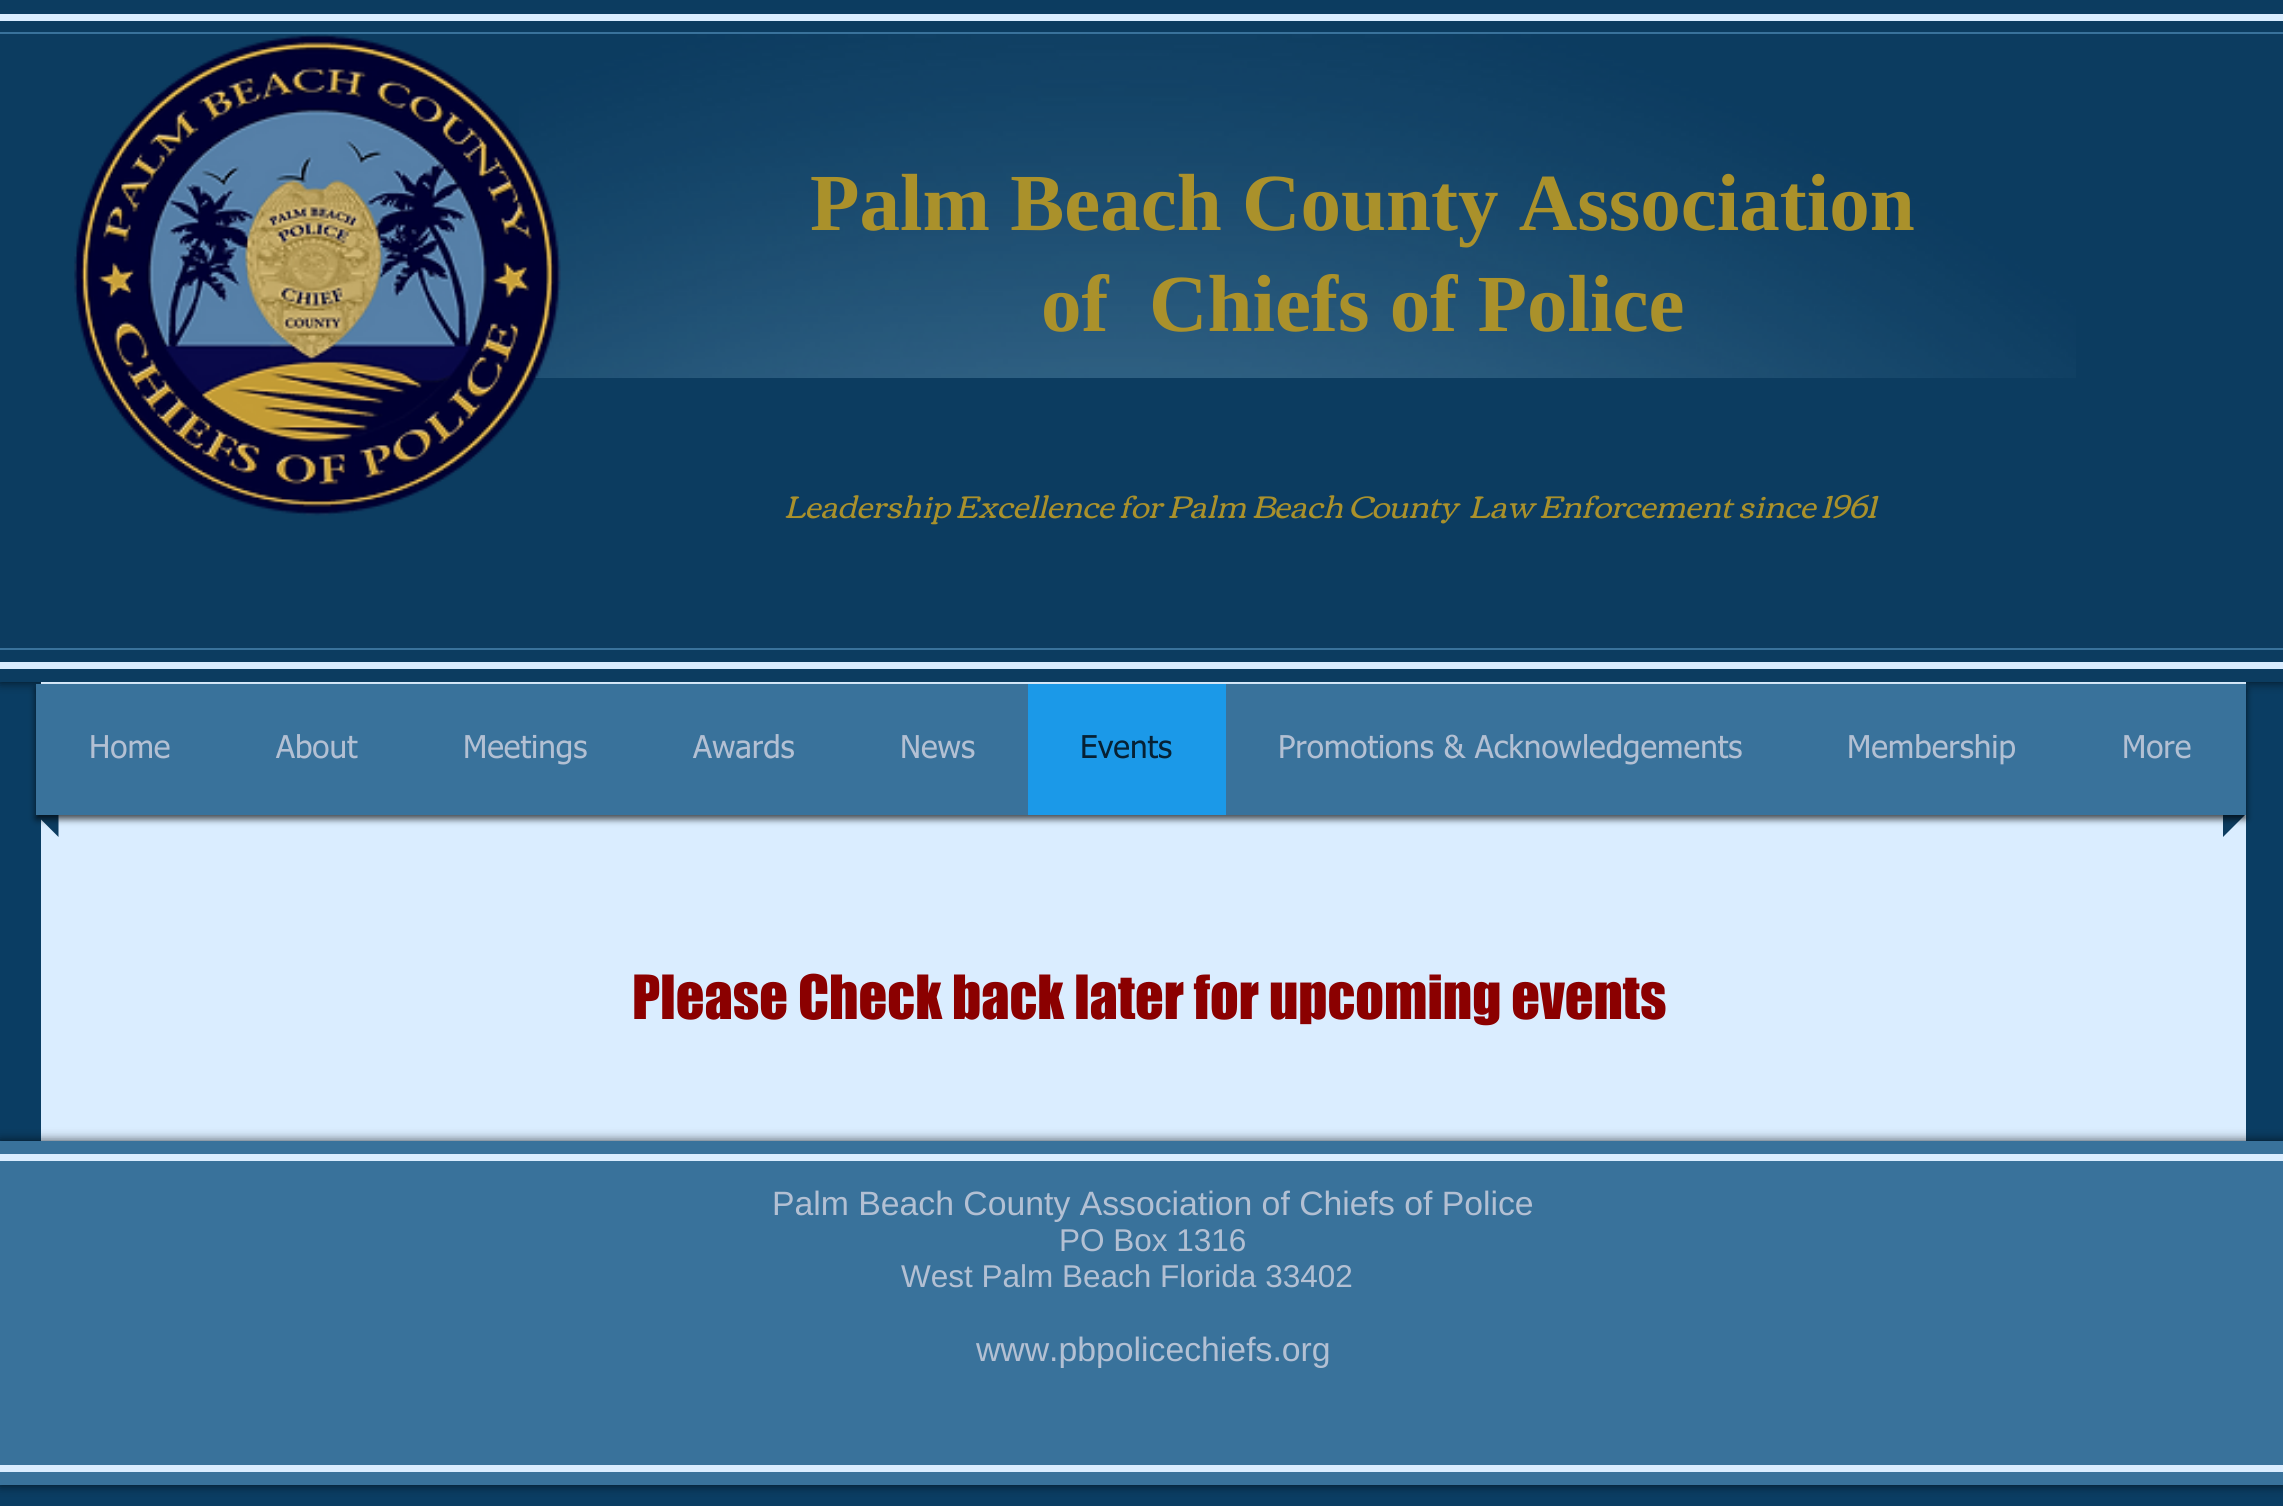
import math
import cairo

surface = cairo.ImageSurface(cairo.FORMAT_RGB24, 2283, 1506)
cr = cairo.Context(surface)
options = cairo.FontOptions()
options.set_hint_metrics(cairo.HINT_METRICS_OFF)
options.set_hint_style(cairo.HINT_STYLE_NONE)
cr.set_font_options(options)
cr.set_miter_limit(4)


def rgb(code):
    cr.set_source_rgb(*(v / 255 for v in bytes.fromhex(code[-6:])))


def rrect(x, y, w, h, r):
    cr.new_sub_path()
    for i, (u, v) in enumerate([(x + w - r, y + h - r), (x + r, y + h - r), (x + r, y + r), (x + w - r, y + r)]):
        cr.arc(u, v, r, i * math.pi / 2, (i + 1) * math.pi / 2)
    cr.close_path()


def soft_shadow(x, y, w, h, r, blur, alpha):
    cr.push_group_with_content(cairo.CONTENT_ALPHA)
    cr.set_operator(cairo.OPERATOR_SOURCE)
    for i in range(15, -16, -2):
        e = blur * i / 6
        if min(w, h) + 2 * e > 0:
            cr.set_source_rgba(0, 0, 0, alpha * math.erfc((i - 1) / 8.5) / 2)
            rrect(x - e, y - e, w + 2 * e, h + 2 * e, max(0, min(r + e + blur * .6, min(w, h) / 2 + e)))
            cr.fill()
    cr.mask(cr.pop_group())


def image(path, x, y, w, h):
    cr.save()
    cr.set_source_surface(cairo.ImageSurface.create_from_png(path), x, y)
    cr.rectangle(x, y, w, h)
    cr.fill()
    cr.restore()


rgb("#0a3d63")
cr.paint()
rgb("#000000")
soft_shadow(0, 0, 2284, 682, 0, 5.5, 0.7)
for x, y, w, h, color in [
    (0, 0, 2283, 682, "#0c3c60"),
    (0, 14, 2283, 7, "#daedff"),
    (0, 662, 2283, 7, "#daedff"),
    (0, 32, 2283, 2, "#39729b"),
    (0, 648, 2283, 2, "#39729b"),
]:
    rgb(color)
    cr.rectangle(x, y, w, h)
    cr.fill()
image("img/2.png", 519, 34, 1557, 344)
image("img/1.png", 74, 34, 487, 482)
rgb("#daedff")
cr.rectangle(41, 682, 2205, 459)
cr.fill()
rgb("#0c3c60")
cr.new_path()
cr.move_to(36, 814.5)
cr.line_to(58.5, 814.5)
cr.line_to(58.5, 837)
cr.close_path()
cr.fill()
cr.new_path()
cr.move_to(2223, 814.5)
cr.line_to(2245.5, 814.5)
cr.line_to(2223, 837)
cr.close_path()
cr.fill()
rgb("#000000")
soft_shadow(36, 689, 2210, 130, 0, 3.5, 0.7)
rgb("#39729b")
cr.rectangle(36, 684, 2210, 131)
cr.fill()
rgb("#1b99e8")
cr.rectangle(1028, 684, 198, 131)
cr.fill()
rgb("#000000")
soft_shadow(0, 1141, 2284, 344, 0, 5.5, 0.7)
for x, y, w, h, color in [
    (0, 1141, 2283, 344, "#39729b"),
    (0, 1154, 2283, 7, "#daedff"),
    (0, 1465, 2283, 7, "#daedff"),
]:
    rgb(color)
    cr.rectangle(x, y, w, h)
    cr.fill()
cr.select_font_face("Liberation Serif", cairo.FONT_SLANT_NORMAL, cairo.FONT_WEIGHT_BOLD)
cr.set_font_size(81)
rgb("#aa912b")
for x, y, s in [
    (810, 230, "Palm Beach County Association"),
    (1041, 331, "of"),
    (1149, 331, "Chiefs of Police"),
]:
    cr.move_to(x, y)
    cr.show_text(s)
cr.select_font_face("Corben", cairo.FONT_SLANT_ITALIC)
cr.set_font_size(31.5)
cr.move_to(784, 518)
cr.show_text("Leadership Excellence for Palm Beach County  Law Enforcement since 1961")
cr.select_font_face("tahoma")
rgb("#b3c0d3")
for x, y, s in [
    (89, 758, "Home"),
    (276, 758, "About"),
    (463, 758, "Meetings"),
    (693, 758, "Awards"),
    (900, 758, "News"),
]:
    cr.move_to(x, y)
    cr.show_text(s)
rgb("#062134")
cr.move_to(1080, 758)
cr.show_text("Events")
rgb("#b3c0d3")
for x, y, s in [
    (1278, 758, "Promotions & Acknowledgements"),
    (1847, 758, "Membership"),
    (2122, 758, "More"),
]:
    cr.move_to(x, y)
    cr.show_text(s)
cr.select_font_face("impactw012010")
cr.set_font_size(56.25)
rgb("#8b0000")
cr.move_to(632, 1019)
cr.show_text("Please Check back later for upcoming events")
cr.select_font_face("Liberation Sans")
cr.set_font_size(33.75)
rgb("#b3c0d3")
cr.move_to(772, 1215)
cr.show_text("Palm Beach County Association of Chiefs of Police")
cr.set_font_size(31.5)
cr.move_to(1059, 1251)
cr.show_text("PO Box 1316")
cr.move_to(901, 1287)
cr.show_text("West Palm Beach Florida 33402")
cr.set_font_size(33.75)
cr.move_to(976, 1361)
cr.show_text("www.pbpolicechiefs.org")
surface.write_to_png("page.png")
